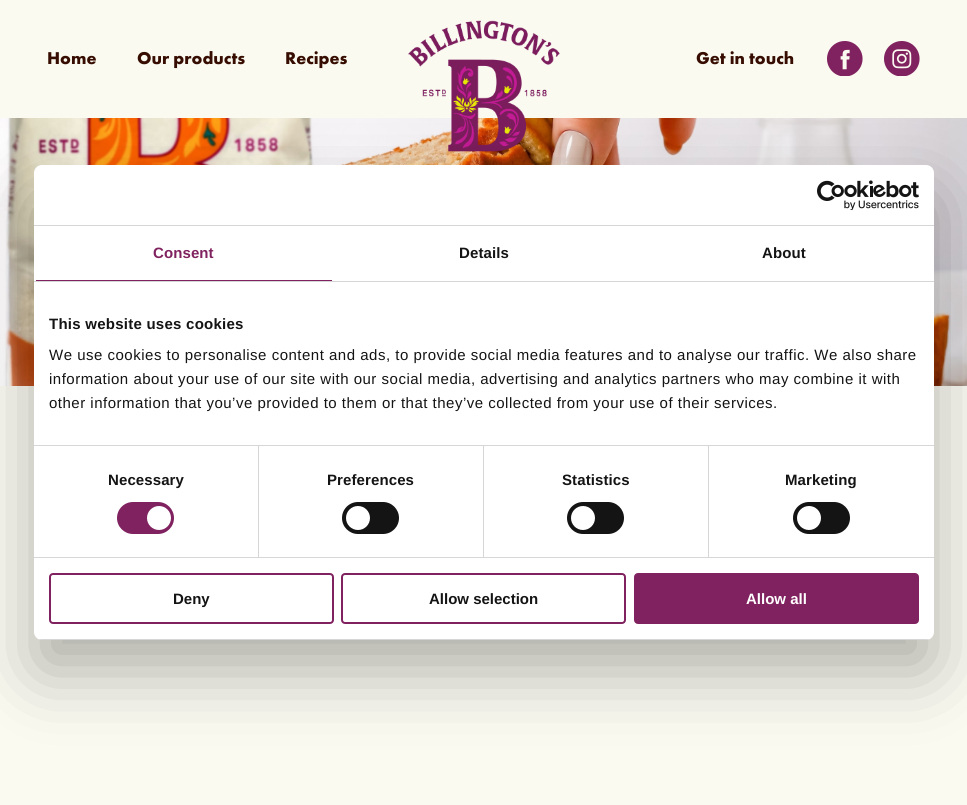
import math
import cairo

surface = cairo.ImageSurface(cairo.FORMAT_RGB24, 967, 805)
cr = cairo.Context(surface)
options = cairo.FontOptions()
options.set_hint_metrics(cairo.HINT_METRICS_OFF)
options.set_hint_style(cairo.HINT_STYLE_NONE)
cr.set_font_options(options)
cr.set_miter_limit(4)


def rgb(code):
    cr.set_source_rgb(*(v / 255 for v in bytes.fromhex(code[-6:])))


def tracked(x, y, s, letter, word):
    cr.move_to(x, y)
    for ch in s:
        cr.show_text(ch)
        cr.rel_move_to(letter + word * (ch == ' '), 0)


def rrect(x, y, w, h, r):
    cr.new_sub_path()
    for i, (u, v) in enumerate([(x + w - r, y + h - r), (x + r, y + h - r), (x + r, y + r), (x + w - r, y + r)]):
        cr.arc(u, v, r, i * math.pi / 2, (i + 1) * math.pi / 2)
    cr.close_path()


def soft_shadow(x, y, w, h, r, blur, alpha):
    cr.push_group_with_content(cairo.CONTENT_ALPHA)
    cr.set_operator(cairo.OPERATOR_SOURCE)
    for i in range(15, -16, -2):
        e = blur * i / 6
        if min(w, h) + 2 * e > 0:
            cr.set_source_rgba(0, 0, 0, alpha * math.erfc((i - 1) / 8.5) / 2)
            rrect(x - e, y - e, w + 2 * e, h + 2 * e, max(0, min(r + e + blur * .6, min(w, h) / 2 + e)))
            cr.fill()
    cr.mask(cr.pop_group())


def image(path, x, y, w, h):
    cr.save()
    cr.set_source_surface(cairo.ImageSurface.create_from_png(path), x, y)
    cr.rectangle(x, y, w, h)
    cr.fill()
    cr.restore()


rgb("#fafaf1")
cr.paint()
image("img/4.png", 0, 118, 967, 268)
image("img/1.png", 408, 20, 152, 132)
image("img/2.png", 827, 41, 36, 35)
image("img/3.png", 884, 41, 36, 35)
rgb("#000000")
soft_shadow(34, 197, 900, 475, 8, 34, 0.3)
rgb("#ffffff")
rrect(34, 165, 900, 475, 8)
cr.fill()
rgb("#d6d6d6")
cr.rectangle(34, 225, 900, 1)
cr.fill()
image("img/5.png", 817, 180, 102, 30)
for x, y, w, h, color in [
    (34, 281, 900, 1, "#d6d6d6"),
    (36, 280, 296, 1, "#80225f"),
    (34, 445, 900, 1, "#d6d6d6"),
    (34, 557, 900, 1, "#d6d6d6"),
    (258, 446, 1, 111, "#d6d6d6"),
]:
    rgb(color)
    cr.rectangle(x, y, w, h)
    cr.fill()
rgb("#80225f")
rrect(117, 502, 57, 32, 16)
cr.fill()
rgb("#ffffff")
cr.arc(159, 518, 12, 0, 2 * math.pi)
cr.fill()
rgb("#d6d6d6")
cr.rectangle(483, 446, 1, 111)
cr.fill()
rgb("#141414")
rrect(342, 502, 57, 32, 16)
cr.fill()
rgb("#ffffff")
cr.arc(358, 518, 12, 0, 2 * math.pi)
cr.fill()
rgb("#d6d6d6")
cr.rectangle(708, 446, 1, 111)
cr.fill()
rgb("#141414")
rrect(567, 502, 57, 32, 16)
cr.fill()
rgb("#ffffff")
cr.arc(583, 518, 12, 0, 2 * math.pi)
cr.fill()
rgb("#141414")
rrect(793, 502, 57, 32, 16)
cr.fill()
rgb("#ffffff")
cr.arc(809, 518, 12, 0, 2 * math.pi)
cr.fill()
cr.save()
rrect(34, 165, 900, 475, 8)
cr.clip()
rgb("#d6d6d6")
cr.rectangle(34, 639, 900, 1)
cr.fill()
cr.restore()
rrect(50, 574, 283, 49, 3)
rgb("#80225f")
cr.stroke()
rrect(342, 574, 283, 49, 3)
cr.stroke()
rrect(635, 574, 283, 49, 3)
cr.fill_preserve()
cr.stroke()
cr.select_font_face("Futura PT", cairo.FONT_SLANT_NORMAL, cairo.FONT_WEIGHT_BOLD)
cr.set_font_size(17.75)
rgb("#370d01")
for x, y, s in [
    (47, 64, "Home"),
    (137, 64, "Our products"),
    (285, 64, "Recipes"),
    (696, 64, "Get in touch"),
]:
    cr.move_to(x, y)
    cr.show_text(s)
cr.select_font_face("Liberation Sans", cairo.FONT_SLANT_NORMAL, cairo.FONT_WEIGHT_BOLD)
cr.set_font_size(15)
rgb("#80225f")
tracked(153, 258, "Consent", 0.1, 0)
rgb("#141414")
tracked(459, 258, "Details", 0.1, 0)
tracked(762, 258, "About", 0.1, 0)
tracked(49, 329, "This website uses cookies", 0.25, 0)
cr.select_font_face("Liberation Sans")
for x, y, s in [
    (49, 360, "We use cookies to personalise content and ads, to provide social media features and to analyse our traffic. We also share"),
    (49, 384, "information about your use of our site with our social media, advertising and analytics partners who may combine it with"),
    (49, 408, "other information that you’ve provided to them or that they’ve collected from your use of their services."),
]:
    tracked(x, y, s, 0.5, 0)
cr.select_font_face("Liberation Sans", cairo.FONT_SLANT_NORMAL, cairo.FONT_WEIGHT_BOLD)
for x, y, s in [
    (108, 485, "Necessary"),
    (327, 485, "Preferences"),
    (562, 485, "Statistics"),
    (785, 485, "Marketing"),
]:
    tracked(x, y, s, 0.1, 0)
cr.move_to(173, 604)
cr.show_text("Deny")
cr.move_to(429, 604)
cr.show_text("Allow selection")
rgb("#ffffff")
cr.move_to(746, 604)
cr.show_text("Allow all")
surface.write_to_png("page.png")
